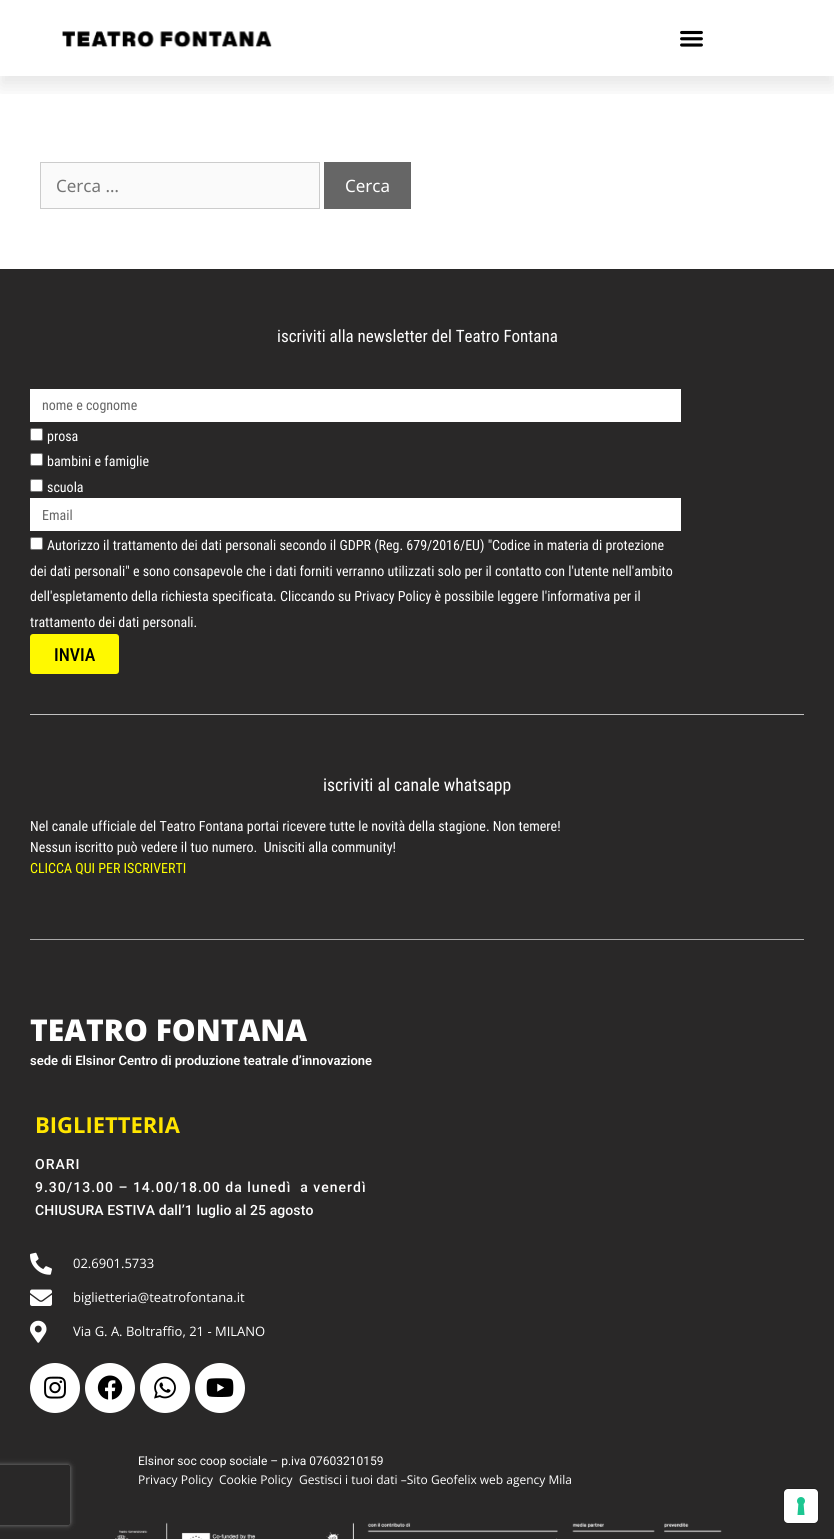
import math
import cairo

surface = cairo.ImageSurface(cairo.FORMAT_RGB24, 834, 1539)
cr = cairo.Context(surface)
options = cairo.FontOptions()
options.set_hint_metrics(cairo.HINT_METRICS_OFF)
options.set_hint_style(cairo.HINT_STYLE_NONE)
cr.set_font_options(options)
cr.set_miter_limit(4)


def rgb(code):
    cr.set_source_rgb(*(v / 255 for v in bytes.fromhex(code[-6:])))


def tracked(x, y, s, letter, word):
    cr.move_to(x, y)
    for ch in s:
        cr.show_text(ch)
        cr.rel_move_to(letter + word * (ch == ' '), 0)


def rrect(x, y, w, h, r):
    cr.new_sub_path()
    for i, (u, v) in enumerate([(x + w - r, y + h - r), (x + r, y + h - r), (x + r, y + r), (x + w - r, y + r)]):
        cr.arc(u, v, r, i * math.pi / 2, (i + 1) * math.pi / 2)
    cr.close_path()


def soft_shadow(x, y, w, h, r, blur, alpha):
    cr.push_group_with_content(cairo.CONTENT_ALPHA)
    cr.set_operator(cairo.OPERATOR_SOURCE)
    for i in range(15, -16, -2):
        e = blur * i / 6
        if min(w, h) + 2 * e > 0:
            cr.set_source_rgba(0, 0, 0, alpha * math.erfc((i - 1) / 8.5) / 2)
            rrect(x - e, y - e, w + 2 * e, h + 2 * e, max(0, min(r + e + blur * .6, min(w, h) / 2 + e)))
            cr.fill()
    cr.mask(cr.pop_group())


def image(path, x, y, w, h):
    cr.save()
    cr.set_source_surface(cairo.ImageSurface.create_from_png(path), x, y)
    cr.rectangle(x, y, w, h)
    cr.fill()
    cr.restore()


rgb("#ffffff")
cr.paint()
cr.save()
cr.rectangle(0, 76, 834, 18)
cr.clip()
rgb("#000000")
soft_shadow(0, 10, 834, 76, 0, 10, 0.1)
cr.restore()
image("img/1.png", 62, 31, 210, 17)
image("img/2.png", 680, 30, 23, 17)
rgb("#fafafa")
cr.rectangle(40.5, 162.5, 279, 46)
cr.fill_preserve()
rgb("#cccccc")
cr.set_line_width(1)
cr.stroke()
for x, y, w, h, color in [
    (324, 162, 87, 47, "#666666"),
    (0, 269, 834, 1270, "#292828"),
    (30, 389, 651, 33, "#ffffff"),
]:
    rgb(color)
    cr.rectangle(x, y, w, h)
    cr.fill()
rrect(30.5, 428.5, 12, 12, 1.5)
cr.fill_preserve()
rgb("#767676")
cr.stroke()
rgb("#ffffff")
rrect(30.5, 453.5, 12, 12, 1.5)
cr.fill_preserve()
rgb("#767676")
cr.stroke()
rgb("#ffffff")
rrect(30.5, 479.5, 12, 12, 1.5)
cr.fill_preserve()
rgb("#767676")
cr.stroke()
rgb("#ffffff")
cr.rectangle(30, 498, 651, 33)
cr.fill()
rrect(30.5, 537.5, 12, 12, 1.5)
cr.fill_preserve()
rgb("#767676")
cr.stroke()
rgb("#fff900")
rrect(30, 634, 89, 40, 3)
cr.fill()
cr.save()
cr.set_fill_rule(cairo.FILL_RULE_EVEN_ODD)
cr.new_path()
cr.move_to(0, 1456)
cr.line_to(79, 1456)
cr.line_to(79, 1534)
cr.line_to(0, 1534)
cr.close_path()
cr.move_to(-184, 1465)
cr.line_to(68, 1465)
cr.curve_to(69, 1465, 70, 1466, 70, 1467)
cr.line_to(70, 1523)
cr.curve_to(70, 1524, 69, 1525, 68, 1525)
cr.line_to(-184, 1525)
cr.curve_to(-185, 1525, -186, 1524, -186, 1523)
cr.line_to(-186, 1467)
cr.curve_to(-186, 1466, -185, 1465, -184, 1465)
cr.close_path()
cr.clip()
rgb("#808080")
soft_shadow(-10, 1465, 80, 60, 2, 2.5, 1)
cr.restore()
rgb("#c1c1c1")
cr.rectangle(30, 714, 774, 1)
cr.fill()
rgb("#a9a9a9")
cr.rectangle(30, 939, 774, 1)
cr.fill()
image("img/3.png", 30, 1252, 22, 23)
image("img/4.png", 30, 1289, 22, 17)
image("img/5.png", 30, 1320, 17, 23)
rgb("#ffffff")
cr.arc(55, 1388, 25, 0, 2 * math.pi)
cr.fill()
image("img/6.png", 44, 1376, 22, 23)
cr.arc(110, 1388, 25, 0, 2 * math.pi)
cr.fill()
image("img/7.png", 97, 1375, 26, 25)
cr.arc(165, 1388, 25, 0, 2 * math.pi)
cr.fill()
image("img/8.png", 154, 1376, 22, 23)
cr.arc(220, 1388, 25, 0, 2 * math.pi)
cr.fill()
image("img/9.png", 206, 1378, 28, 19)
image("img/10.png", 115, 1522, 607, 17)
rrect(783.5, 1488.5, 35, 35, 4.5)
rgb("#232222")
cr.stroke()
rgb("#ffffff")
rrect(784, 1489, 34, 34, 4)
cr.fill()
image("img/11.png", 797, 1497, 8, 18)
cr.select_font_face("Noto Sans")
cr.set_font_size(17)
rgb("#757575")
cr.move_to(56, 192)
cr.show_text("Cerca …")
rgb("#ffffff")
cr.move_to(345, 192)
cr.show_text("Cerca")
cr.select_font_face("Roboto Condensed")
cr.move_to(277, 342)
cr.show_text("iscriviti alla newsletter del Teatro Fontana")
cr.set_font_size(14)
rgb("#666666")
cr.move_to(42, 410)
cr.show_text("nome e cognome")
rgb("#ffffff")
for x, y, s in [
    (47, 441, "prosa"),
    (47, 466, "bambini e famiglie"),
    (47, 492, "scuola"),
]:
    cr.move_to(x, y)
    cr.show_text(s)
rgb("#666666")
cr.move_to(42, 520)
cr.show_text("Email")
rgb("#ffffff")
for x, y, s in [
    (47, 550, "Autorizzo il trattamento dei dati personali secondo il GDPR (Reg. 679/2016/EU) \"Codice in materia di protezione"),
    (30, 576, "dei dati personali\" e sono consapevole che i dati forniti verranno utilizzati solo per il contatto con l'utente nell'ambito"),
    (30, 601, "dell'espletamento della richiesta specificata. Cliccando su Privacy Policy è possibile leggere l'informativa per il"),
    (30, 627, "trattamento dei dati personali."),
]:
    cr.move_to(x, y)
    cr.show_text(s)
cr.select_font_face("Roboto Condensed Medium")
cr.set_font_size(18)
rgb("#000000")
cr.move_to(54, 661)
cr.show_text("INVIA")
cr.select_font_face("Roboto Condensed")
cr.set_font_size(17.6)
rgb("#ffffff")
cr.move_to(323, 791)
cr.show_text("iscriviti al canale whatsapp")
cr.set_font_size(14)
cr.move_to(30, 831)
cr.show_text("Nel canale ufficiale del Teatro Fontana portai ricevere tutte le novità della stagione. Non temere!")
cr.move_to(30, 852)
cr.show_text("Nessun iscritto può vedere il tuo numero.  Unisciti alla community!")
rgb("#ffff00")
cr.move_to(30, 873)
cr.show_text("CLICCA QUI PER ISCRIVERTI")
cr.select_font_face("Open Sans ExtraBold")
cr.set_font_size(30)
rgb("#ffffff")
cr.move_to(30, 1041)
cr.show_text("TEATRO FONTANA")
cr.select_font_face("Roboto SemiBold")
cr.set_font_size(13)
cr.move_to(30, 1065)
cr.show_text("sede di Elsinor Centro di produzione teatrale d’innovazione")
cr.select_font_face("Open Sans", cairo.FONT_SLANT_NORMAL, cairo.FONT_WEIGHT_BOLD)
cr.set_font_size(22)
rgb("#ffe500")
cr.move_to(35, 1133)
cr.show_text("BIGLIETTERIA")
cr.select_font_face("Roboto Medium")
cr.set_font_size(14)
rgb("#ffffff")
tracked(35, 1169, "ORARI", 1, 0)
tracked(35, 1192, "9.30/13.00 – 14.00/18.00 da lunedì  a venerdì", 1, 0)
tracked(35, 1215, "CHIUSURA ESTIVA dall’1 luglio al 25 agosto", 0.1, 0)
cr.select_font_face("Open Sans")
cr.set_font_size(13)
for x, y, s in [
    (73, 1268, "02.6901.5733"),
    (73, 1302, "biglietteria@teatrofontana.it"),
    (73, 1336, "Via G. A. Boltraffio, 21 - MILANO"),
]:
    cr.move_to(x, y)
    cr.show_text(s)
cr.select_font_face("Roboto")
cr.set_font_size(12)
cr.move_to(138, 1465)
cr.show_text("Elsinor soc coop sociale – p.iva 07603210159")
cr.select_font_face("Open Sans")
for x, y, s in [
    (138, 1484, "Privacy Policy"),
    (219, 1484, "Cookie Policy"),
    (299, 1484, "Gestisci i tuoi dati –Sito Geofelix web agency Mila"),
]:
    cr.move_to(x, y)
    cr.show_text(s)
surface.write_to_png("page.png")
